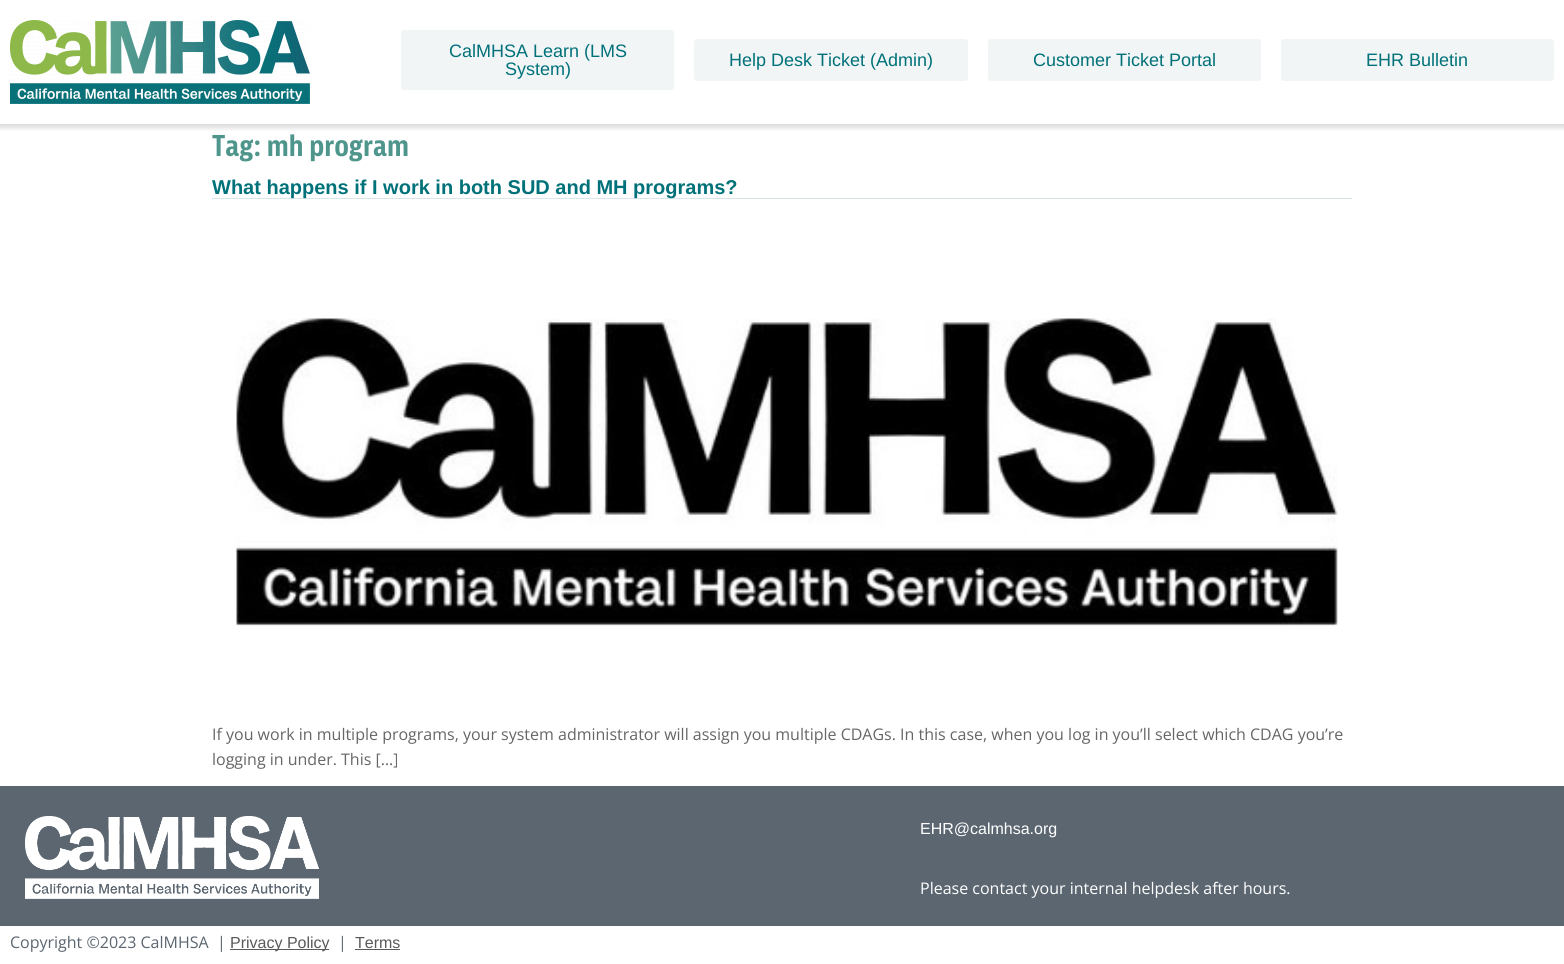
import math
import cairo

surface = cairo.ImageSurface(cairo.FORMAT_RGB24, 1564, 964)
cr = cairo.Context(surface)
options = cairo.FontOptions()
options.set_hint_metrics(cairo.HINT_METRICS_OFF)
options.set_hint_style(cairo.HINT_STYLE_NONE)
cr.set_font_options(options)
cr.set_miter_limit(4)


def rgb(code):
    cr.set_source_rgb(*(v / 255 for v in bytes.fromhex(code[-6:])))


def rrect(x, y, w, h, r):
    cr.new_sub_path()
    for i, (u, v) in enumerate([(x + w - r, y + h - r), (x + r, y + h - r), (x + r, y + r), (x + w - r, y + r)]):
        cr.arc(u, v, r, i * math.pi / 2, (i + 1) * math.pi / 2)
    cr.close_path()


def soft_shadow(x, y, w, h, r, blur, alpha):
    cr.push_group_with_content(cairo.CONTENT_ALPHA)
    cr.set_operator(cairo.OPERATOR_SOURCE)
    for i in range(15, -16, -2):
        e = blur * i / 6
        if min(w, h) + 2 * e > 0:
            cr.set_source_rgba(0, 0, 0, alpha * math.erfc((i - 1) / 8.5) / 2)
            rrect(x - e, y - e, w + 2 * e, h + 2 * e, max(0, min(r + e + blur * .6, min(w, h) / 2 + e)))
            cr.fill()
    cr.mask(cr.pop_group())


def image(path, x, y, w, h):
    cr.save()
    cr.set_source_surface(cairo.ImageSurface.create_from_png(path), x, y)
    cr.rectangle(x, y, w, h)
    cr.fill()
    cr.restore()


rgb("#ffffff")
cr.paint()
cr.save()
cr.rectangle(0, 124, 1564, 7)
cr.clip()
rgb("#000000")
soft_shadow(-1, -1, 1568, 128, 0, 3.5, 0.18)
cr.restore()
image("img/1.png", 10, 20, 300, 84)
rgb("#f1f5f6")
rrect(401, 30, 273, 60, 3)
cr.fill()
rrect(694, 39, 274, 42, 3)
cr.fill()
rrect(988, 39, 273, 42, 3)
cr.fill()
rrect(1281, 39, 273, 42, 3)
cr.fill()
rgb("#dbe5e8")
cr.rectangle(212, 198, 1140, 1)
cr.fill()
image("img/2.png", 235, 318, 1103, 308)
rgb("#5b6670")
cr.rectangle(0, 786, 1564, 140)
cr.fill()
image("img/3.png", 25, 816, 294, 83)
rgb("#5a5a5a")
cr.rectangle(230, 949, 99, 1)
cr.fill()
cr.rectangle(355, 949, 45, 1)
cr.fill()
cr.select_font_face("Liberation Sans")
cr.set_font_size(18)
rgb("#007179")
for x, y, s in [
    (449, 57, "CalMHSA Learn (LMS"),
    (505, 75, "System)"),
    (729, 66, "Help Desk Ticket (Admin)"),
    (1033, 66, "Customer Ticket Portal"),
    (1366, 66, "EHR Bulletin"),
]:
    cr.move_to(x, y)
    cr.show_text(s)
cr.select_font_face("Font", cairo.FONT_SLANT_NORMAL, cairo.FONT_WEIGHT_BOLD)
cr.set_font_size(30)
rgb("#4e958c")
cr.move_to(212, 156)
cr.show_text("Tag: mh program")
cr.select_font_face("Liberation Sans", cairo.FONT_SLANT_NORMAL, cairo.FONT_WEIGHT_BOLD)
cr.set_font_size(20)
rgb("#007179")
cr.move_to(212, 194)
cr.show_text("What happens if I work in both SUD and MH programs?")
cr.select_font_face("Open Sans")
cr.set_font_size(16)
rgb("#666666")
cr.move_to(212, 740)
cr.show_text("If you work in multiple programs, your system administrator will assign you multiple CDAGs. In this case, when you log in you’ll select which CDAG you’re")
cr.move_to(212, 765)
cr.show_text("logging in under. This […]")
cr.select_font_face("Liberation Sans")
rgb("#ffffff")
cr.move_to(920, 834)
cr.show_text("EHR@calmhsa.org")
cr.select_font_face("Open Sans")
cr.move_to(920, 894)
cr.show_text("Please contact your internal helpdesk after hours.")
rgb("#5b6670")
cr.move_to(10, 948)
cr.show_text("Copyright ©2023 CalMHSA  |")
cr.select_font_face("Liberation Sans")
rgb("#5a5a5a")
cr.move_to(230, 948)
cr.show_text("Privacy Policy")
cr.select_font_face("Open Sans")
rgb("#5b6670")
cr.move_to(338, 948)
cr.show_text("|")
cr.select_font_face("Liberation Sans")
rgb("#5a5a5a")
cr.move_to(355, 948)
cr.show_text("Terms")
surface.write_to_png("page.png")
